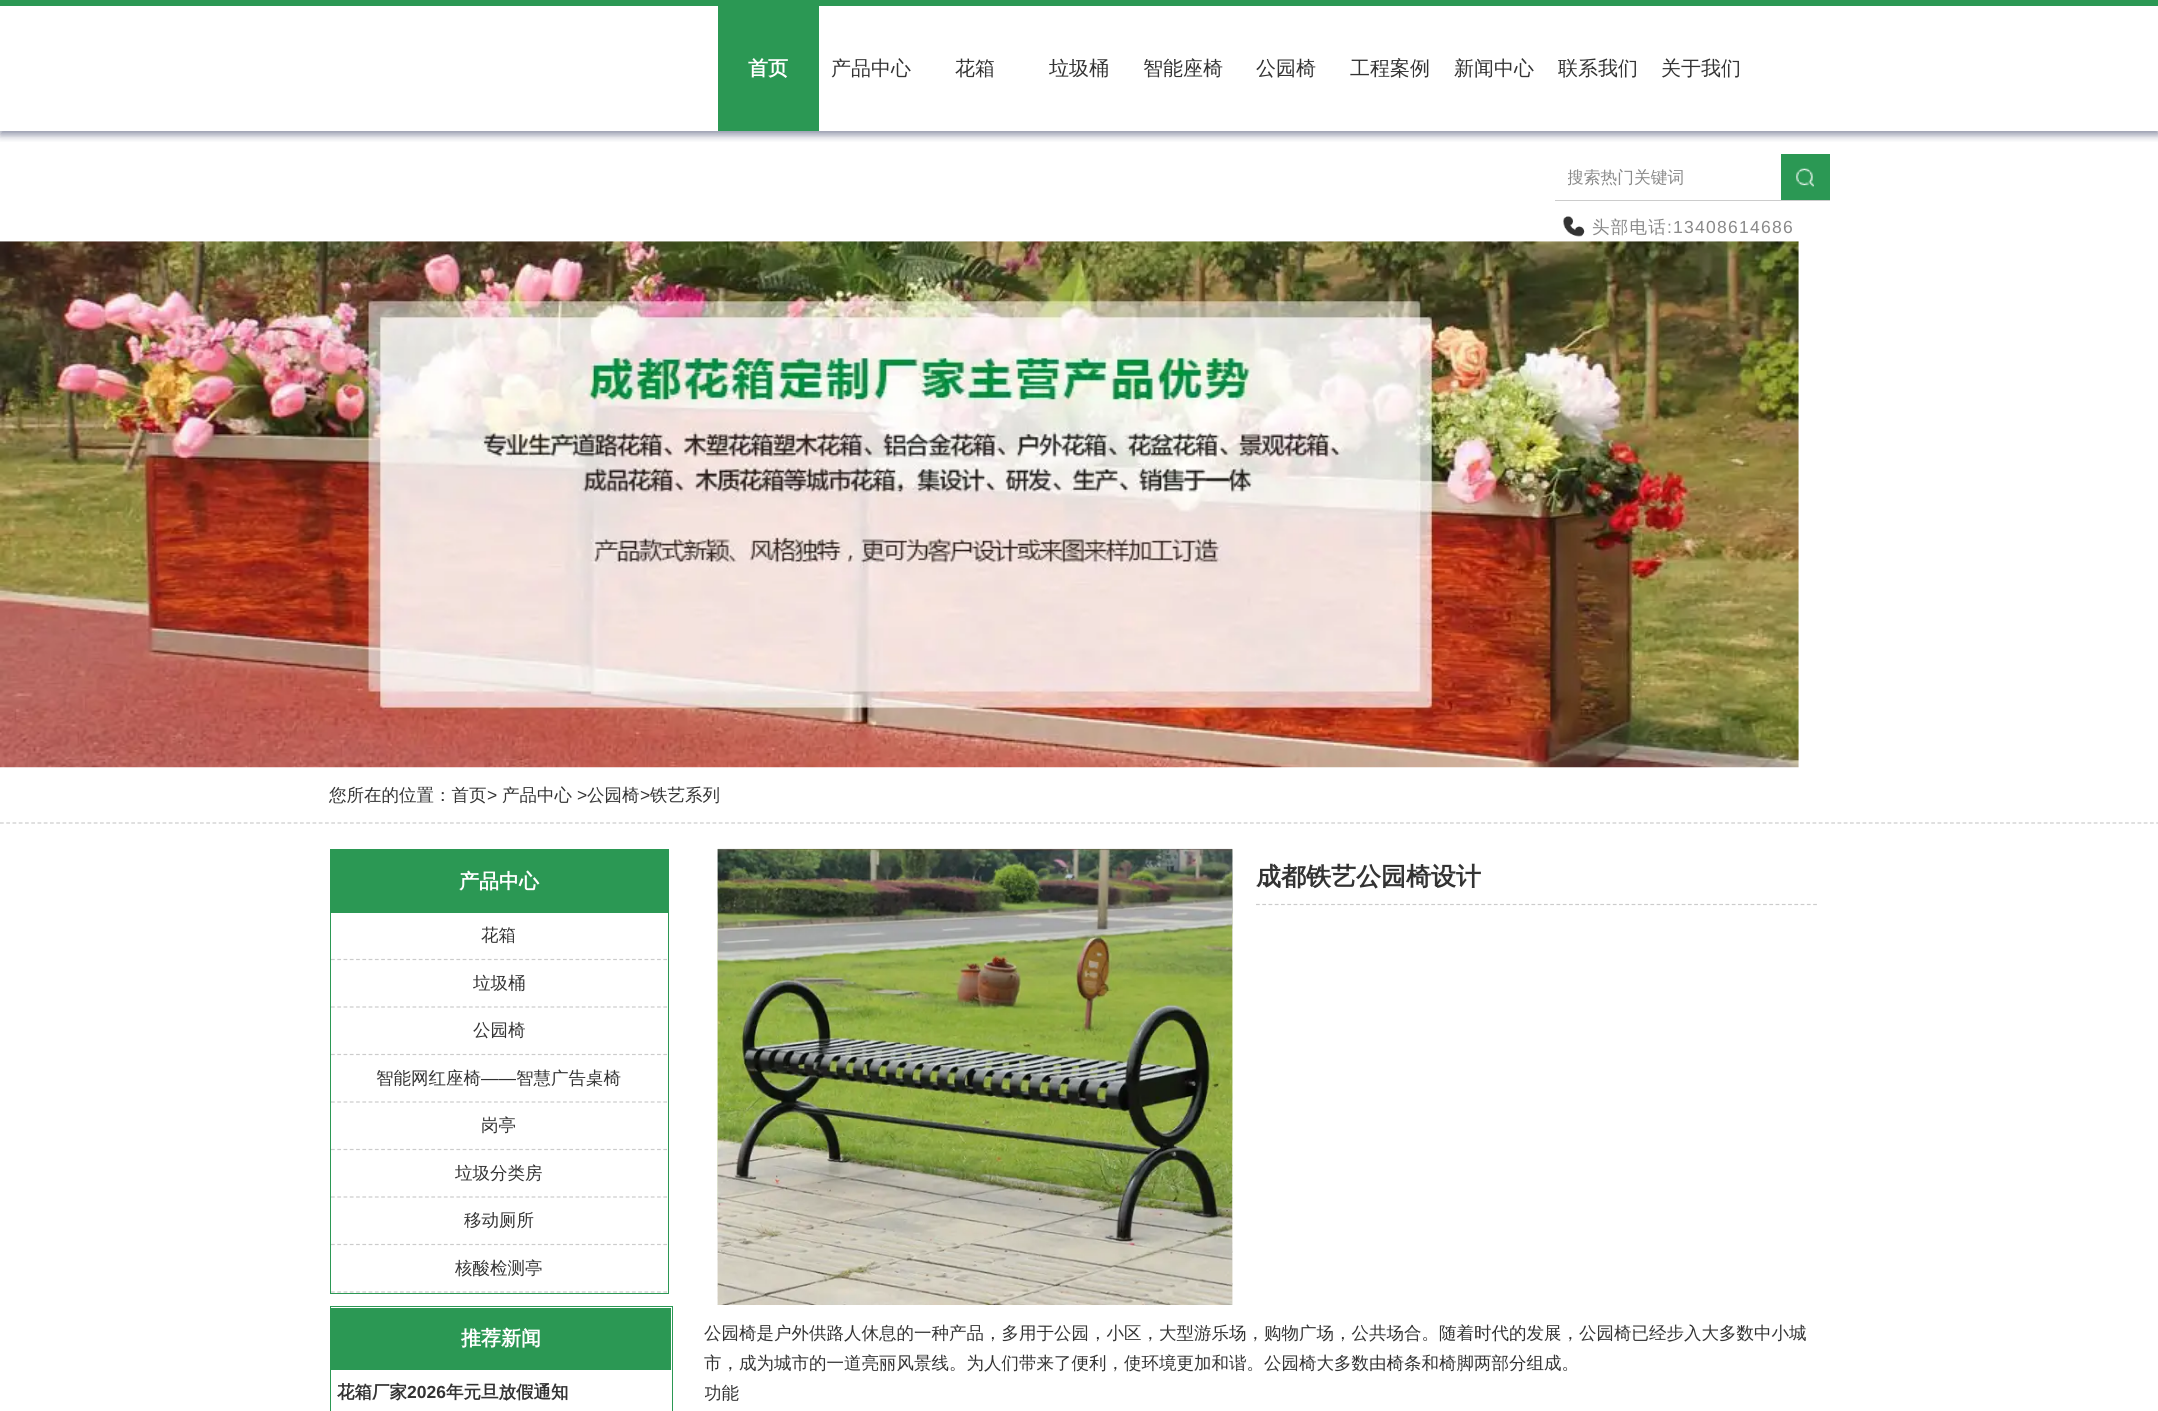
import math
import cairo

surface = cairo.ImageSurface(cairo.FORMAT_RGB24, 2158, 1411)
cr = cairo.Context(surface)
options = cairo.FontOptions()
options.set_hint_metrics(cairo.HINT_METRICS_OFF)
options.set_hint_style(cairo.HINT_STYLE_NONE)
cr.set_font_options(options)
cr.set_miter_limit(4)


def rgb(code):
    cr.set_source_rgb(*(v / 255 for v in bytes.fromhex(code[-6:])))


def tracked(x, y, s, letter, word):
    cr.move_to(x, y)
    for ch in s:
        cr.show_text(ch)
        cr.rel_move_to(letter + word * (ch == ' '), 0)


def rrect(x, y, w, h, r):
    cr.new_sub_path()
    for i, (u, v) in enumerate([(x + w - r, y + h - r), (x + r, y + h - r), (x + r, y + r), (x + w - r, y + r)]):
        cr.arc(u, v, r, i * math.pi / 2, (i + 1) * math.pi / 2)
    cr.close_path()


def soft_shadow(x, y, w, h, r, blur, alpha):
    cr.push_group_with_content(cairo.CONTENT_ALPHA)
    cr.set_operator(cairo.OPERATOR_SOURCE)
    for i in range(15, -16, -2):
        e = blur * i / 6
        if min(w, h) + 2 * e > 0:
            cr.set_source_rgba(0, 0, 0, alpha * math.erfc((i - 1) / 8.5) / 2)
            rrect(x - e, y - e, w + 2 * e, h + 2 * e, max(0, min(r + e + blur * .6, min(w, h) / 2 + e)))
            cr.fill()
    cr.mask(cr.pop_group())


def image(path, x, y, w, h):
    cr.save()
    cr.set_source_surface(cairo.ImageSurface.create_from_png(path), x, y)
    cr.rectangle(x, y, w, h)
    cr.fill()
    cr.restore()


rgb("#ffffff")
cr.paint()
cr.save()
cr.rectangle(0, 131, 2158, 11)
cr.clip()
rgb("#1e254f")
soft_shadow(0, 4, 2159, 131, 0, 4, 0.5)
cr.restore()
for x, y, w, h, color in [
    (0, 0, 2158, 6, "#2b9854"),
    (718, 6, 101, 125, "#2b9854"),
    (1555, 200, 275, 1, "#cccccc"),
    (1781, 154, 49, 46, "#2b9854"),
]:
    rgb(color)
    cr.rectangle(x, y, w, h)
    cr.fill()
image("img/1.png", 1796, 168, 18, 19)
image("img/2.png", 1563, 216, 22, 21)
image("img/3.png", 0, 241, 1799, 527)
cr.new_path()
cr.move_to(0, 823)
cr.line_to(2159, 823)
rgb("#cccccc")
cr.set_line_width(1.2)
cr.set_dash([3.75, 2.5])
cr.stroke()
cr.rectangle(330.5, 849.5, 338, 444)
rgb("#2b9854")
cr.set_line_width(1)
cr.set_dash([])
cr.stroke()
cr.rectangle(331, 850, 337, 63)
cr.fill()
cr.new_path()
cr.move_to(331, 959.5)
cr.line_to(667.5, 959.5)
rgb("#cccccc")
cr.set_line_width(1.2)
cr.set_dash([3.75, 2.52])
cr.stroke()
cr.new_path()
cr.move_to(331, 1007)
cr.line_to(667.5, 1007)
cr.stroke()
cr.new_path()
cr.move_to(331, 1054.5)
cr.line_to(667.5, 1054.5)
cr.stroke()
cr.new_path()
cr.move_to(331, 1102)
cr.line_to(667.5, 1102)
cr.stroke()
cr.new_path()
cr.move_to(331, 1149.5)
cr.line_to(667.5, 1149.5)
cr.stroke()
cr.new_path()
cr.move_to(331, 1197)
cr.line_to(667.5, 1197)
cr.stroke()
cr.new_path()
cr.move_to(331, 1244.5)
cr.line_to(667.5, 1244.5)
cr.stroke()
cr.new_path()
cr.move_to(331, 1292)
cr.line_to(667.5, 1292)
cr.stroke()
cr.rectangle(330.5, 1306.5, 342, 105)
rgb("#2b9854")
cr.set_line_width(1)
cr.set_dash([])
cr.stroke()
cr.rectangle(331, 1308, 340, 62)
cr.fill()
image("img/5.png", 717, 849, 1, 456)
image("img/4.png", 717, 848, 516, 457)
image("img/6.png", 1232, 849, 1, 456)
cr.new_path()
cr.move_to(1256, 904.5)
cr.line_to(1817.5, 904.5)
rgb("#cccccc")
cr.set_line_width(1.2)
cr.set_dash([3.75, 2.51])
cr.stroke()
cr.select_font_face("WenQuanYi Zen Hei", cairo.FONT_SLANT_NORMAL, cairo.FONT_WEIGHT_BOLD)
cr.set_font_size(20)
rgb("#ffffff")
cr.move_to(748, 75)
cr.show_text("首页")
cr.select_font_face("WenQuanYi Zen Hei Medium")
rgb("#333333")
for x, y, s in [
    (831, 75, "产品中心"),
    (955, 75, "花箱"),
    (1049, 75, "垃圾桶"),
    (1143, 75, "智能座椅"),
    (1256, 75, "公园椅"),
    (1350, 75, "工程案例"),
    (1454, 75, "新闻中心"),
    (1558, 75, "联系我们"),
    (1661, 75, "关于我们"),
]:
    cr.move_to(x, y)
    cr.show_text(s)
cr.save()
cr.rectangle(1568, 155, 222, 44)
cr.clip()
cr.set_font_size(16.75)
rgb("#898989")
cr.move_to(1567, 183)
cr.show_text("搜索热门关键词")
cr.restore()
cr.set_font_size(17.5)
rgb("#898989")
tracked(1592, 233, "头部电话", 1.25, 0)
cr.select_font_face("Liberation Sans")
tracked(1667, 233, ":13408614686", 1.25, 0)
cr.select_font_face("WenQuanYi Zen Hei Medium")
rgb("#333333")
cr.move_to(329, 801)
cr.show_text("您所在的位置：首页")
cr.select_font_face("Liberation Sans")
cr.move_to(487, 801)
cr.show_text(">")
cr.select_font_face("WenQuanYi Zen Hei Medium")
cr.move_to(502, 801)
cr.show_text("产品中心")
cr.select_font_face("Liberation Sans")
cr.move_to(577, 801)
cr.show_text(">")
cr.select_font_face("WenQuanYi Zen Hei Medium")
cr.move_to(587, 801)
cr.show_text("公园椅")
cr.select_font_face("Liberation Sans")
cr.move_to(640, 801)
cr.show_text(">")
cr.select_font_face("WenQuanYi Zen Hei Medium")
cr.move_to(650, 801)
cr.show_text("铁艺系列")
cr.select_font_face("WenQuanYi Zen Hei", cairo.FONT_SLANT_NORMAL, cairo.FONT_WEIGHT_BOLD)
cr.set_font_size(20)
rgb("#ffffff")
cr.move_to(459, 888)
cr.show_text("产品中心")
cr.select_font_face("WenQuanYi Zen Hei Medium")
cr.set_font_size(17.5)
rgb("#333333")
for x, y, s in [
    (481, 941, "花箱"),
    (473, 989, "垃圾桶"),
    (473, 1036, "公园椅"),
    (376, 1084, "智能网红座椅"),
]:
    cr.move_to(x, y)
    cr.show_text(s)
cr.select_font_face("Liberation Sans")
cr.move_to(481, 1084)
cr.show_text("——")
cr.select_font_face("WenQuanYi Zen Hei Medium")
for x, y, s in [
    (516, 1084, "智慧广告桌椅"),
    (481, 1131, "岗亭"),
    (455, 1179, "垃圾分类房"),
    (464, 1226, "移动厕所"),
    (455, 1274, "核酸检测亭"),
]:
    cr.move_to(x, y)
    cr.show_text(s)
cr.select_font_face("WenQuanYi Zen Hei", cairo.FONT_SLANT_NORMAL, cairo.FONT_WEIGHT_BOLD)
cr.set_font_size(20)
rgb("#ffffff")
cr.move_to(461, 1345)
cr.show_text("推荐新闻")
cr.set_font_size(17.5)
rgb("#333333")
cr.move_to(337, 1398)
cr.show_text("花箱厂家")
cr.select_font_face("Liberation Sans", cairo.FONT_SLANT_NORMAL, cairo.FONT_WEIGHT_BOLD)
cr.move_to(407, 1398)
cr.show_text("2026")
cr.select_font_face("WenQuanYi Zen Hei", cairo.FONT_SLANT_NORMAL, cairo.FONT_WEIGHT_BOLD)
cr.move_to(446, 1398)
cr.show_text("年元旦放假通知")
cr.set_font_size(25)
cr.move_to(1256, 885)
cr.show_text("成都铁艺公园椅设计")
cr.select_font_face("WenQuanYi Zen Hei Medium")
cr.set_font_size(17.5)
cr.move_to(704, 1339)
cr.show_text("公园椅是户外供路人休息的一种产品，多用于公园，小区，大型游乐场，购物广场，公共场合。随着时代的发展，公园椅已经步入大多数中小城")
cr.move_to(704, 1369)
cr.show_text("市，成为城市的一道亮丽风景线。为人们带来了便利，使环境更加和谐。公园椅大多数由椅条和椅脚两部分组成。")
cr.save()
cr.rectangle(705, 849, 1125, 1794)
cr.clip()
cr.move_to(704, 1399)
cr.show_text("功能")
cr.restore()
surface.write_to_png("page.png")
